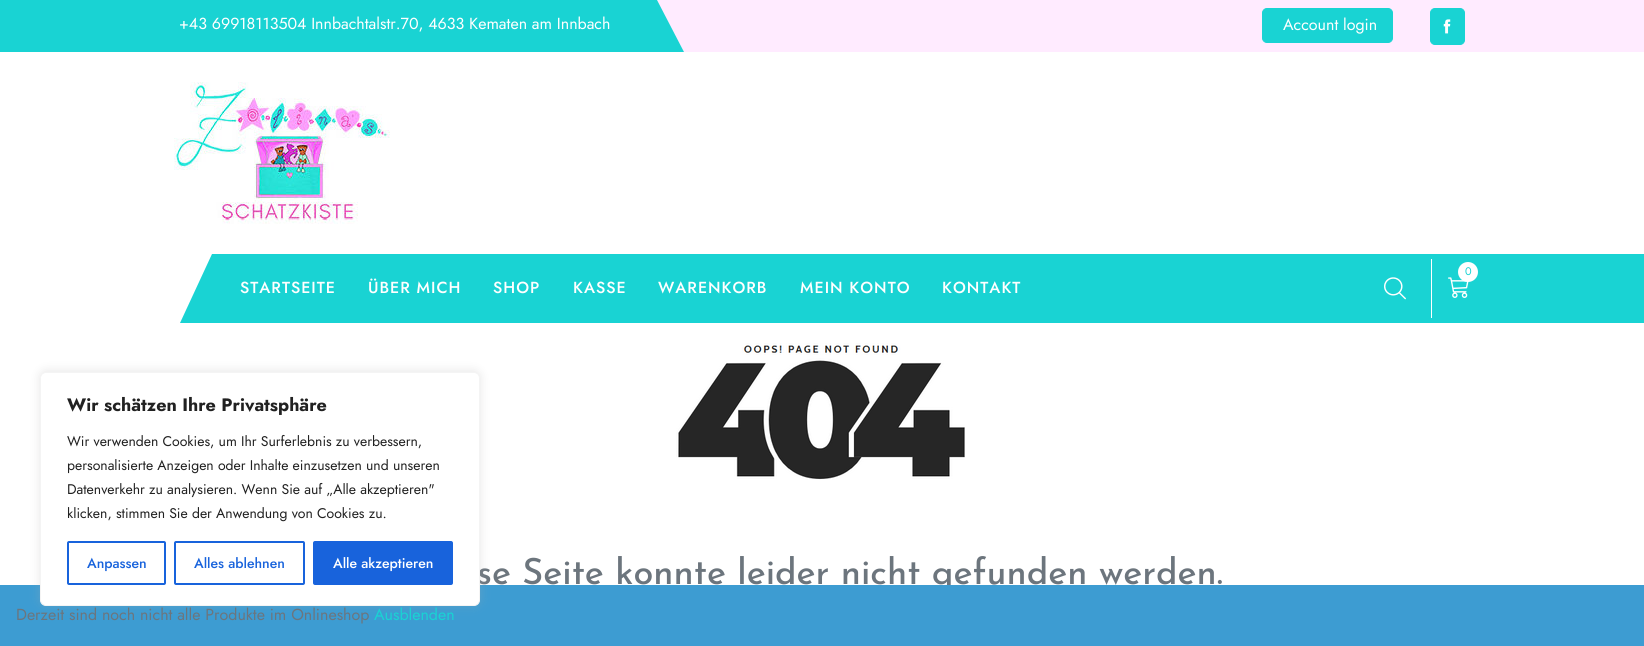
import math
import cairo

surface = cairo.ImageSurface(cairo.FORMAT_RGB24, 1644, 646)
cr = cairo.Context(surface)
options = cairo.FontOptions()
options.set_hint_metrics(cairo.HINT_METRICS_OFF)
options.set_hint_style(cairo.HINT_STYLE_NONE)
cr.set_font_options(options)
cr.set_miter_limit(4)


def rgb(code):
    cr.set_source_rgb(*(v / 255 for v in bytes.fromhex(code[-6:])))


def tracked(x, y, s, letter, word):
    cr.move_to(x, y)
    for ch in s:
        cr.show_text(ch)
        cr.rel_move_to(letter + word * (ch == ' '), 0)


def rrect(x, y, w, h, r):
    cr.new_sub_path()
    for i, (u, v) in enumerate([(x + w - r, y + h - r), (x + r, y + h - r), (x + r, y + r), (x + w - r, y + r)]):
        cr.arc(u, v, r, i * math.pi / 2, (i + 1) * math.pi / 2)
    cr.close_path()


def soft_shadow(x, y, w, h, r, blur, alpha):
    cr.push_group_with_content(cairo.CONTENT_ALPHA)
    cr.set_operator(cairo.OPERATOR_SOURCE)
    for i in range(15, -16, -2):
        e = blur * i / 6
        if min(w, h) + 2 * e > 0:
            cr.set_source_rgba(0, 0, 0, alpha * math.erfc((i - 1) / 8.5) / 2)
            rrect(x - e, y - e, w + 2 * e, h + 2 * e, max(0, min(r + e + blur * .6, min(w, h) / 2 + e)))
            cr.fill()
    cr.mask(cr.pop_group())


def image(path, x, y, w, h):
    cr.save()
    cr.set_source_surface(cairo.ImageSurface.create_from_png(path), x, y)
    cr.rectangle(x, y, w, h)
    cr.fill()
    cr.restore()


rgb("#ffffff")
cr.paint()
rgb("#ffebff")
cr.rectangle(657, 0, 987, 52)
cr.fill()
rgb("#19d3d3")
cr.new_path()
cr.move_to(-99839, 0)
cr.line_to(657, 0)
cr.line_to(684, 52)
cr.line_to(-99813, 52)
cr.close_path()
cr.fill()
rrect(1262.5, 8.5, 130, 34, 4.5)
cr.fill_preserve()
cr.set_line_width(1)
cr.stroke()
rrect(1430.5, 8.5, 34, 36, 4.5)
cr.fill_preserve()
cr.stroke()
image("img/1.png", 1443, 19, 8, 15)
image("img/2.png", 174, 82, 216, 142)
cr.new_path()
cr.move_to(212, 254)
cr.line_to(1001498, 254)
cr.line_to(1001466, 323)
cr.line_to(180, 323)
cr.close_path()
cr.fill()
rgb("#ffffff")
cr.rectangle(1431, 259, 1, 59)
cr.fill()
image("img/3.png", 1384, 277, 22, 23)
image("img/4.png", 1448, 277, 21, 21)
cr.arc(1468, 272, 10, 0, 2 * math.pi)
cr.fill()
image("img/5.png", 676, 343, 289, 137)
cr.select_font_face("Jost")
cr.set_font_size(16)
cr.move_to(179, 29)
cr.show_text("+43 69918113504 Innbachtalstr.70, 4633 Kematen am Innbach")
cr.move_to(1283, 30)
cr.show_text("Account login")
cr.set_font_size(11)
rgb("#19d3d3")
cr.move_to(1465, 275)
cr.show_text("0")
cr.select_font_face("Jost Medium")
cr.set_font_size(16)
rgb("#ffffff")
for x, y, s in [
    (240, 293, "STARTSEITE"),
    (368, 293, "ÜBER MICH"),
    (493, 293, "SHOP"),
    (573, 293, "KASSE"),
    (658, 293, "WARENKORB"),
    (800, 293, "MEIN KONTO"),
    (942, 293, "KONTAKT"),
]:
    tracked(x, y, s, 1, 0)
cr.select_font_face("Josefin Sans Medium")
cr.set_font_size(36)
rgb("#6c757d")
cr.move_to(477, 584)
cr.show_text("se Seite konnte leider nicht gefunden werden.")
rgb("#3d9cd2")
cr.rectangle(0, 585, 1644, 61)
cr.fill()
rgb("#acabab")
soft_shadow(40, 371, 440, 234, 6, 5, 0.3)
rgb("#ffffff")
rrect(40.5, 372.5, 439, 233, 5.5)
cr.fill_preserve()
rgb("#f4f4f4")
cr.stroke()
rgb("#1863dc")
rrect(314, 542, 138, 42, 1)
cr.fill_preserve()
cr.set_line_width(2)
cr.stroke()
cr.select_font_face("Jost Medium")
cr.set_font_size(14)
rgb("#ffffff")
cr.move_to(333, 568)
cr.show_text("Alle akzeptieren")
rrect(175, 542, 129, 42, 1)
rgb("#1863dc")
cr.stroke()
cr.move_to(194, 568)
cr.show_text("Alles ablehnen")
rrect(68, 542, 97, 42, 1)
cr.stroke()
cr.move_to(87, 568)
cr.show_text("Anpassen")
cr.select_font_face("Jost")
rgb("#212121")
for x, y, s in [
    (67, 518, "klicken, stimmen Sie der Anwendung von Cookies zu."),
    (67, 494, "Datenverkehr zu analysieren. Wenn Sie auf „Alle akzeptieren\""),
    (67, 470, "personalisierte Anzeigen oder Inhalte einzusetzen und unseren"),
    (67, 446, "Wir verwenden Cookies, um Ihr Surferlebnis zu verbessern,"),
]:
    cr.move_to(x, y)
    cr.show_text(s)
cr.select_font_face("Jost", cairo.FONT_SLANT_NORMAL, cairo.FONT_WEIGHT_BOLD)
cr.set_font_size(18)
cr.move_to(67, 411)
cr.show_text("Wir schätzen Ihre Privatsphäre")
cr.select_font_face("Jost")
cr.set_font_size(16)
rgb("#6c757d")
cr.move_to(16, 620)
cr.show_text("Derzeit sind noch nicht alle Produkte im Onlineshop")
rgb("#19d3d3")
cr.move_to(374, 620)
cr.show_text("Ausblenden")
surface.write_to_png("page.png")
